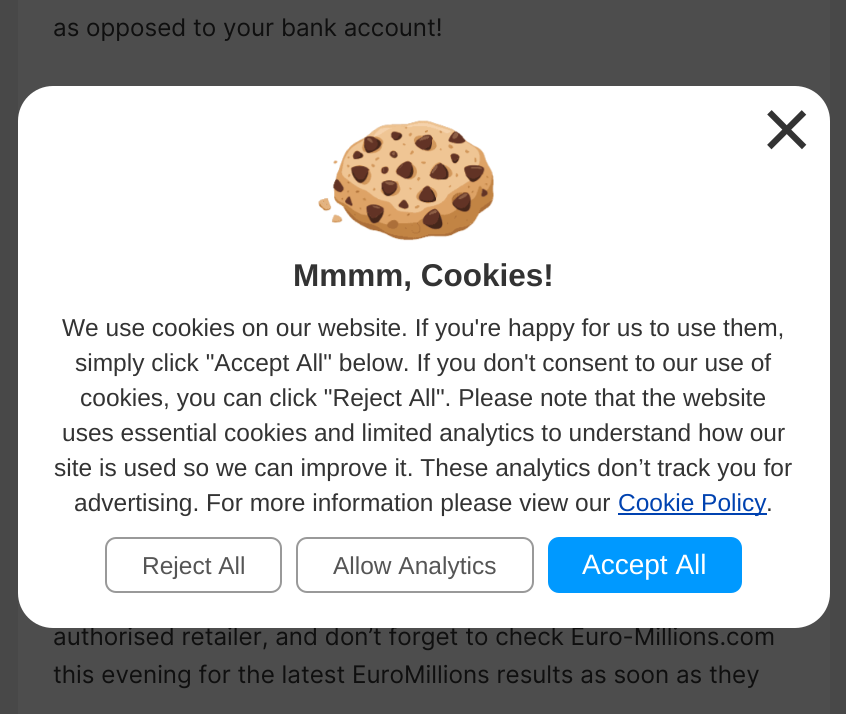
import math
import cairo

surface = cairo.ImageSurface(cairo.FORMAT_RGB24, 846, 714)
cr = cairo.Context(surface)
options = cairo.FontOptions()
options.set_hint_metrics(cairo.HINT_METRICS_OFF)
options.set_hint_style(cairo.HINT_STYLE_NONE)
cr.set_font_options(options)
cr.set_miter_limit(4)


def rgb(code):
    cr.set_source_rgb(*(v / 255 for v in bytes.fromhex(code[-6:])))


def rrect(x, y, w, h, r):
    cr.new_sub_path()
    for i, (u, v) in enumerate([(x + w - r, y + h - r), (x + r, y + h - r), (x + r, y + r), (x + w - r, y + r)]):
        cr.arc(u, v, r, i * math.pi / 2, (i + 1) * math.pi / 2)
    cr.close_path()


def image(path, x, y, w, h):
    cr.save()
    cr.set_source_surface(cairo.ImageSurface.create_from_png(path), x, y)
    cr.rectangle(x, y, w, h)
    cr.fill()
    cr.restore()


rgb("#484848")
cr.paint()
rgb("#4d4d4d")
cr.rectangle(18, 0, 812, 714)
cr.fill()
cr.select_font_face("inter")
cr.set_font_size(25.5)
rgb("#0f0f0f")
for x, y, s in [
    (53, 36, "as opposed to your bank account!"),
    (53, 645, "authorised retailer, and don’t forget to check Euro-Millions.com"),
    (53, 683, "this evening for the latest EuroMillions results as soon as they"),
]:
    cr.move_to(x, y)
    cr.show_text(s)
rgb("#ffffff")
rrect(18, 86, 812, 542, 35)
cr.fill()
image("img/1.png", 318, 120, 176, 121)
cr.select_font_face("Liberation Sans")
cr.set_font_size(88)
rgb("#333333")
cr.move_to(761, 159)
cr.show_text("×")
cr.select_font_face("Liberation Sans", cairo.FONT_SLANT_NORMAL, cairo.FONT_WEIGHT_BOLD)
cr.set_font_size(31.5)
cr.move_to(293, 286)
cr.show_text("Mmmm, Cookies!")
cr.select_font_face("Liberation Sans")
cr.set_font_size(24.5)
for x, y, s in [
    (62, 336, "We use cookies on our website. If you're happy for us to use them,"),
    (75, 371, "simply click \"Accept All\" below. If you don't consent to our use of"),
    (80, 406, "cookies, you can click \"Reject All\". Please note that the website"),
    (62, 441, "uses essential cookies and limited analytics to understand how our"),
    (54, 476, "site is used so we can improve it. These analytics don’t track you for"),
    (74, 511, "advertising. For more information please view our"),
]:
    cr.move_to(x, y)
    cr.show_text(s)
rgb("#0042b0")
cr.rectangle(618, 513, 149, 2)
cr.fill()
cr.move_to(618, 511)
cr.show_text("Cookie Policy")
rgb("#333333")
cr.move_to(766, 511)
cr.show_text(".")
rrect(106, 538, 175, 54, 10)
rgb("#999999")
cr.stroke()
rgb("#555555")
cr.move_to(142, 574)
cr.show_text("Reject All")
rrect(297, 538, 236, 54, 10)
rgb("#999999")
cr.stroke()
rgb("#555555")
cr.move_to(333, 574)
cr.show_text("Allow Analytics")
rgb("#0099ff")
rrect(548, 537, 194, 56, 11)
cr.fill()
cr.set_font_size(28)
rgb("#ffffff")
cr.move_to(582, 574)
cr.show_text("Accept All")
surface.write_to_png("page.png")
